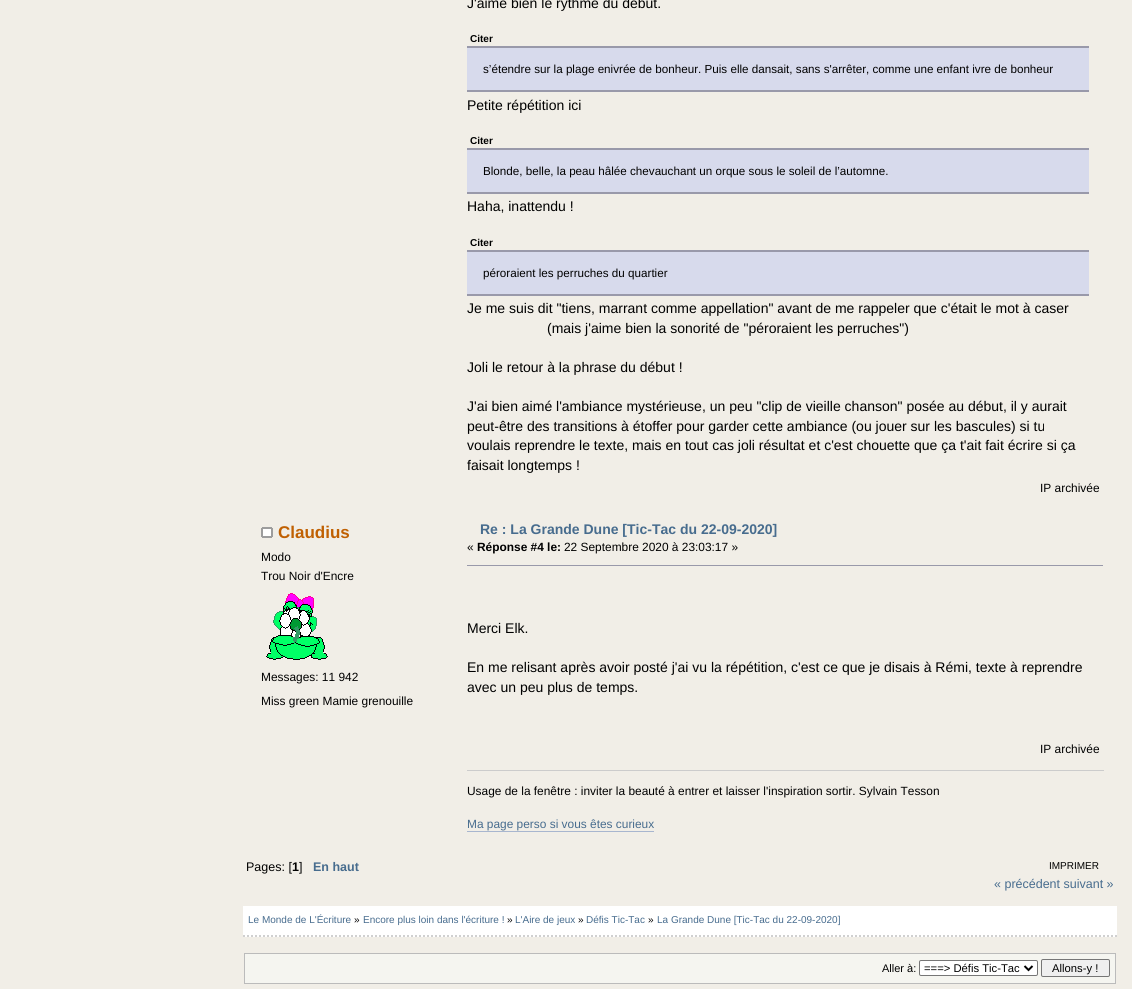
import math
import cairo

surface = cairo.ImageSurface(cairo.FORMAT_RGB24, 1132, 989)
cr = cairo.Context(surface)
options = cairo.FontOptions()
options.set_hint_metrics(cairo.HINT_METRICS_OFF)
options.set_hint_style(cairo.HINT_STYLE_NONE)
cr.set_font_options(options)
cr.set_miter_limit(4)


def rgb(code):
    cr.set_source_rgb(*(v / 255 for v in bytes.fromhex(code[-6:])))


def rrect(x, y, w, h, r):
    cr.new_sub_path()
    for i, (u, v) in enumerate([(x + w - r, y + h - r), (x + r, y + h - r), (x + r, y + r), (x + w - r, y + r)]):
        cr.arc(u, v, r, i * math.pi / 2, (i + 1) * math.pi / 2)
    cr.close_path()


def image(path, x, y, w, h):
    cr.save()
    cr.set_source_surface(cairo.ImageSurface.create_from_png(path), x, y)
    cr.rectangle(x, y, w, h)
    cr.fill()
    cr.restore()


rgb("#f1eee7")
cr.paint()
for x, y, w, h, color in [
    (467, 48, 622, 42, "#d7daec"),
    (467, 46, 622, 2, "#9999aa"),
    (467, 90, 622, 2, "#9999aa"),
    (467, 150, 622, 42, "#d7daec"),
    (467, 148, 622, 2, "#9999aa"),
    (467, 192, 622, 2, "#9999aa"),
    (467, 252, 622, 42, "#d7daec"),
    (467, 250, 622, 2, "#9999aa"),
    (467, 294, 622, 2, "#9999aa"),
]:
    rgb(color)
    cr.rectangle(x, y, w, h)
    cr.fill()
image("img/1.png", 261, 527, 12, 11)
image("img/2.png", 266, 593, 62, 67)
for x, y, w, h, color in [
    (467, 565, 636, 1, "#9999aa"),
    (467, 770, 637, 1, "#cccccc"),
    (467, 831, 187, 1, "#a8b6cf"),
    (243, 906, 874, 31, "#ffffff"),
]:
    rgb(color)
    cr.rectangle(x, y, w, h)
    cr.fill()
cr.new_path()
cr.move_to(243, 936)
cr.line_to(1117, 936)
rgb("#d0d0d0")
cr.set_dash([2, 2])
cr.stroke()
rgb("#f5f5f0")
cr.rectangle(244.5, 953.5, 871, 30)
cr.fill_preserve()
rgb("#bbbbbb")
cr.set_line_width(1)
cr.set_dash([])
cr.stroke()
rgb("#ffffff")
rrect(919.5, 960.5, 118, 15, 1.5)
cr.fill_preserve()
rgb("#767676")
cr.stroke()
cr.new_path()
cr.move_to(1024.5, 966)
cr.line_to(1028.5, 970)
cr.line_to(1032.5, 966)
rgb("#000000")
cr.set_line_width(2)
cr.stroke()
rgb("#efefef")
rrect(1041.5, 959.5, 68, 17, 1.5)
cr.fill_preserve()
rgb("#767676")
cr.set_line_width(1)
cr.stroke()
cr.select_font_face("Liberation Sans")
cr.set_font_size(14)
rgb("#000000")
cr.move_to(467, 8)
cr.show_text("J'aime bien le rythme du début.")
cr.select_font_face("Liberation Sans", cairo.FONT_SLANT_NORMAL, cairo.FONT_WEIGHT_BOLD)
cr.set_font_size(10)
cr.move_to(470, 42)
cr.show_text("Citer")
cr.select_font_face("Liberation Sans")
cr.set_font_size(11.65)
cr.move_to(483, 73)
cr.show_text("s’étendre sur la plage enivrée de bonheur. Puis elle dansait, sans s'arrêter, comme une enfant ivre de bonheur")
cr.set_font_size(14)
cr.move_to(467, 110)
cr.show_text("Petite répétition ici")
cr.select_font_face("Liberation Sans", cairo.FONT_SLANT_NORMAL, cairo.FONT_WEIGHT_BOLD)
cr.set_font_size(10)
cr.move_to(470, 144)
cr.show_text("Citer")
cr.select_font_face("Liberation Sans")
cr.set_font_size(11.65)
cr.move_to(483, 175)
cr.show_text("Blonde, belle, la peau hâlée chevauchant un orque sous le soleil de l’automne.")
cr.set_font_size(14)
cr.move_to(467, 211)
cr.show_text("Haha, inattendu !")
cr.select_font_face("Liberation Sans", cairo.FONT_SLANT_NORMAL, cairo.FONT_WEIGHT_BOLD)
cr.set_font_size(10)
cr.move_to(470, 246)
cr.show_text("Citer")
cr.select_font_face("Liberation Sans")
cr.set_font_size(11.65)
cr.move_to(483, 277)
cr.show_text("péroraient les perruches du quartier")
cr.set_font_size(14)
for x, y, s in [
    (467, 313, "Je me suis dit \"tiens, marrant comme appellation\" avant de me rappeler que c'était le mot à caser"),
    (547, 333, "(mais j'aime bien la sonorité de \"péroraient les perruches\")"),
    (467, 372, "Joli le retour à la phrase du début !"),
    (467, 411, "J'ai bien aimé l'ambiance mystérieuse, un peu \"clip de vieille chanson\" posée au début, il y aurait"),
    (467, 431, "peut-être des transitions à étoffer pour garder cette ambiance (ou jouer sur les bascules) si tu"),
    (467, 450, "voulais reprendre le texte, mais en tout cas joli résultat et c'est chouette que ça t'ait fait écrire si ça"),
    (467, 470, "faisait longtemps !"),
]:
    cr.move_to(x, y)
    cr.show_text(s)
cr.set_font_size(11.9)
cr.move_to(1040, 492)
cr.show_text("IP archivée")
cr.select_font_face("Liberation Sans", cairo.FONT_SLANT_NORMAL, cairo.FONT_WEIGHT_BOLD)
cr.set_font_size(17)
rgb("#c06002")
cr.move_to(278, 538)
cr.show_text("Claudius")
cr.select_font_face("Liberation Sans")
cr.set_font_size(11.9)
rgb("#000000")
for x, y, s in [
    (261, 561, "Modo"),
    (261, 580, "Trou Noir d'Encre"),
    (261, 681, "Messages: 11 942"),
    (261, 705, "Miss green Mamie grenouille"),
]:
    cr.move_to(x, y)
    cr.show_text(s)
cr.select_font_face("Liberation Sans", cairo.FONT_SLANT_NORMAL, cairo.FONT_WEIGHT_BOLD)
cr.set_font_size(14)
rgb("#476c8e")
cr.move_to(480, 534)
cr.show_text("Re : La Grande Dune [Tic-Tac du 22-09-2020]")
cr.select_font_face("Liberation Sans")
cr.set_font_size(11.9)
rgb("#000000")
cr.move_to(467, 551)
cr.show_text("«")
cr.select_font_face("Liberation Sans", cairo.FONT_SLANT_NORMAL, cairo.FONT_WEIGHT_BOLD)
cr.move_to(477, 551)
cr.show_text("Réponse #4 le:")
cr.select_font_face("Liberation Sans")
cr.move_to(564, 551)
cr.show_text("22 Septembre 2020 à 23:03:17 »")
cr.set_font_size(14)
for x, y, s in [
    (467, 633, "Merci Elk."),
    (467, 672, "En me relisant après avoir posté j'ai vu la répétition, c'est ce que je disais à Rémi, texte à reprendre"),
    (467, 692, "avec un peu plus de temps."),
]:
    cr.move_to(x, y)
    cr.show_text(s)
cr.set_font_size(11.9)
cr.move_to(1040, 753)
cr.show_text("IP archivée")
cr.move_to(467, 795)
cr.show_text("Usage de la fenêtre : inviter la beauté à entrer et laisser l'inspiration sortir. Sylvain Tesson")
rgb("#476c8e")
cr.move_to(467, 828)
cr.show_text("Ma page perso si vous êtes curieux")
cr.set_font_size(12.5)
rgb("#000000")
cr.move_to(246, 871)
cr.show_text("Pages: [")
cr.select_font_face("Liberation Sans", cairo.FONT_SLANT_NORMAL, cairo.FONT_WEIGHT_BOLD)
cr.move_to(292, 871)
cr.show_text("1")
cr.select_font_face("Liberation Sans")
cr.move_to(299, 871)
cr.show_text("]")
cr.select_font_face("Liberation Sans", cairo.FONT_SLANT_NORMAL, cairo.FONT_WEIGHT_BOLD)
rgb("#476c8e")
cr.move_to(313, 871)
cr.show_text("En haut")
cr.select_font_face("Liberation Sans")
cr.set_font_size(10)
rgb("#000000")
cr.move_to(1049, 869)
cr.show_text("IMPRIMER")
cr.set_font_size(12.5)
rgb("#476c8e")
cr.move_to(994, 888)
cr.show_text("« précédent suivant »")
cr.set_font_size(10)
cr.move_to(248, 923)
cr.show_text("Le Monde de L'Écriture")
rgb("#000000")
cr.move_to(354, 923)
cr.show_text("»")
rgb("#476c8e")
cr.move_to(363, 923)
cr.show_text("Encore plus loin dans l'écriture !")
rgb("#000000")
cr.move_to(507, 923)
cr.show_text("»")
rgb("#476c8e")
cr.move_to(515, 923)
cr.show_text("L'Aire de jeux")
rgb("#000000")
cr.move_to(578, 923)
cr.show_text("»")
rgb("#476c8e")
cr.move_to(586, 923)
cr.show_text("Défis Tic-Tac")
rgb("#000000")
cr.move_to(648, 923)
cr.show_text("»")
rgb("#476c8e")
cr.move_to(657, 923)
cr.show_text("La Grande Dune [Tic-Tac du 22-09-2020]")
cr.set_font_size(11)
rgb("#000000")
cr.move_to(882, 972)
cr.show_text("Aller à:")
cr.set_font_size(11.25)
cr.move_to(924, 972)
cr.show_text("===> Défis Tic-Tac")
cr.move_to(1052, 972)
cr.show_text("Allons-y !")
surface.write_to_png("page.png")
